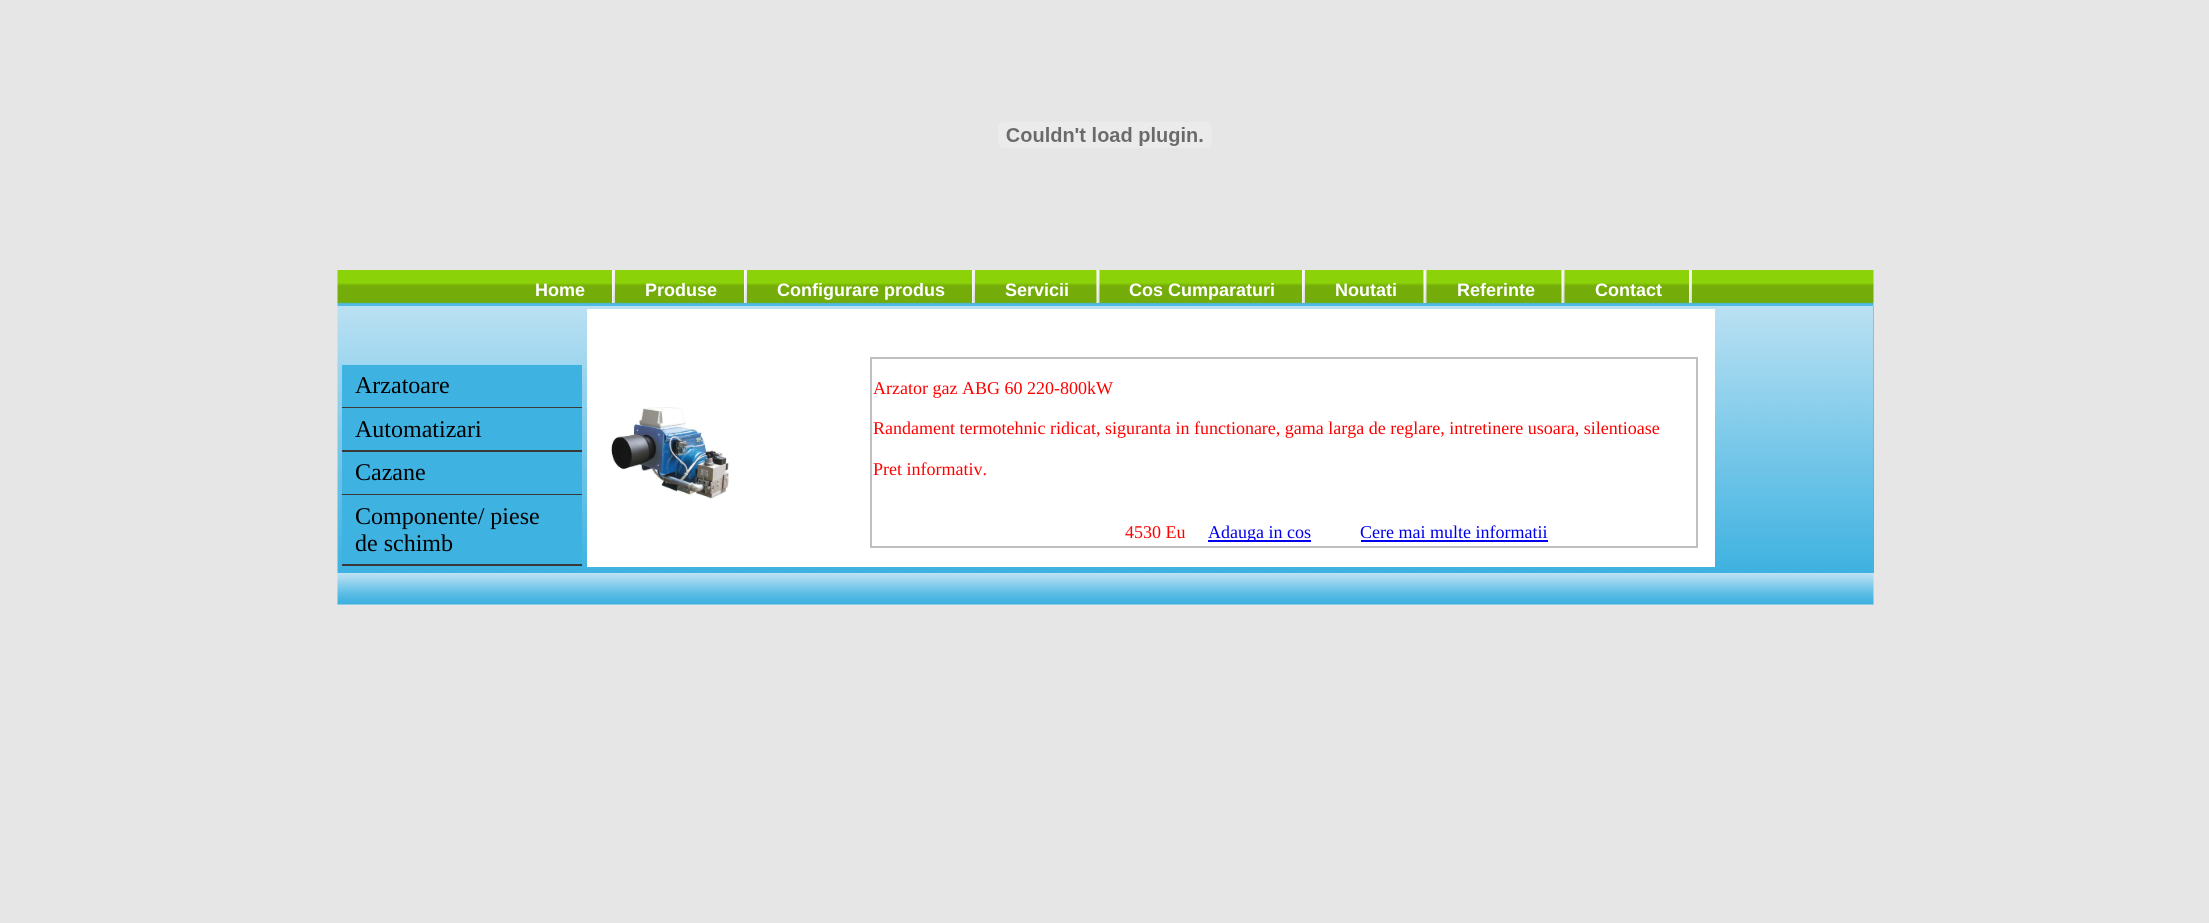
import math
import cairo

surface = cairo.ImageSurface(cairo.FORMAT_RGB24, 2209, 923)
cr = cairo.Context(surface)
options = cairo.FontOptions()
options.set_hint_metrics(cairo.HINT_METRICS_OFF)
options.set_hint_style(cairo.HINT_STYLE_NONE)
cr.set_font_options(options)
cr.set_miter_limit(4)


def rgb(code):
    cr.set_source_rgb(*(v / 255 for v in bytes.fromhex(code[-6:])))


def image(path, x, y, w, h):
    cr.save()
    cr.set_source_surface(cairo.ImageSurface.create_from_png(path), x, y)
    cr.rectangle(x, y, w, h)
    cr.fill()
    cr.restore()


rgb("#e6e6e6")
cr.paint()
image("img/1.png", 998, 122, 214, 26)
image("img/2.png", 337, 270, 1537, 36)
image("img/3.png", 612, 270, 3, 33)
image("img/4.png", 744, 270, 3, 33)
image("img/3.png", 972, 270, 3, 33)
image("img/5.png", 1096, 270, 4, 33)
image("img/3.png", 1302, 270, 3, 33)
image("img/5.png", 1423, 270, 4, 33)
image("img/5.png", 1561, 270, 4, 33)
image("img/3.png", 1689, 270, 3, 33)
rgb("#3eb2e1")
cr.rectangle(1873, 306, 1, 267)
cr.fill()
image("img/6.png", 337, 306, 1537, 267)
for x, y, w, h, color in [
    (342, 365, 240, 129, "#3eb2e1"),
    (342, 407, 240, 1, "#393939"),
    (342, 450, 240, 2, "#393939"),
    (342, 494, 240, 1, "#393939"),
    (342, 495, 240, 69, "#3eb2e1"),
    (342, 564, 240, 2, "#393939"),
    (587, 309, 1128, 258, "#ffffff"),
]:
    rgb(color)
    cr.rectangle(x, y, w, h)
    cr.fill()
image("img/7.png", 611, 407, 118, 92)
cr.rectangle(871, 358, 826, 189)
rgb("#c0c0c0")
cr.stroke()
rgb("#0000ee")
cr.rectangle(1208, 540, 103, 2)
cr.fill()
cr.rectangle(1361, 540, 187, 2)
cr.fill()
image("img/8.png", 337, 573, 1537, 32)
cr.select_font_face("Liberation Sans", cairo.FONT_SLANT_NORMAL, cairo.FONT_WEIGHT_BOLD)
cr.set_font_size(18)
rgb("#ffffff")
for x, y, s in [
    (535, 296, "Home"),
    (645, 296, "Produse"),
    (777, 296, "Configurare produs"),
    (1005, 296, "Servicii"),
    (1129, 296, "Cos Cumparaturi"),
    (1335, 296, "Noutati"),
    (1457, 296, "Referinte"),
    (1595, 296, "Contact"),
]:
    cr.move_to(x, y)
    cr.show_text(s)
cr.select_font_face("Liberation Serif")
cr.set_font_size(24)
rgb("#000000")
for x, y, s in [
    (355, 393, "Arzatoare"),
    (355, 437, "Automatizari"),
    (355, 480, "Cazane"),
    (355, 524, "Componente/ piese"),
    (355, 551, "de schimb"),
]:
    cr.move_to(x, y)
    cr.show_text(s)
cr.set_font_size(18)
rgb("#ff0000")
for x, y, s in [
    (873, 394, "Arzator gaz ABG 60 220-800kW"),
    (873, 434, "Randament termotehnic ridicat, siguranta in functionare, gama larga de reglare, intretinere usoara, silentioase"),
    (873, 475, "Pret informativ."),
    (1125, 538, "4530 Eu"),
]:
    cr.move_to(x, y)
    cr.show_text(s)
rgb("#0000ee")
cr.move_to(1208, 538)
cr.show_text("Adauga in cos")
cr.move_to(1360, 538)
cr.show_text("Cere mai multe informatii")
surface.write_to_png("page.png")
